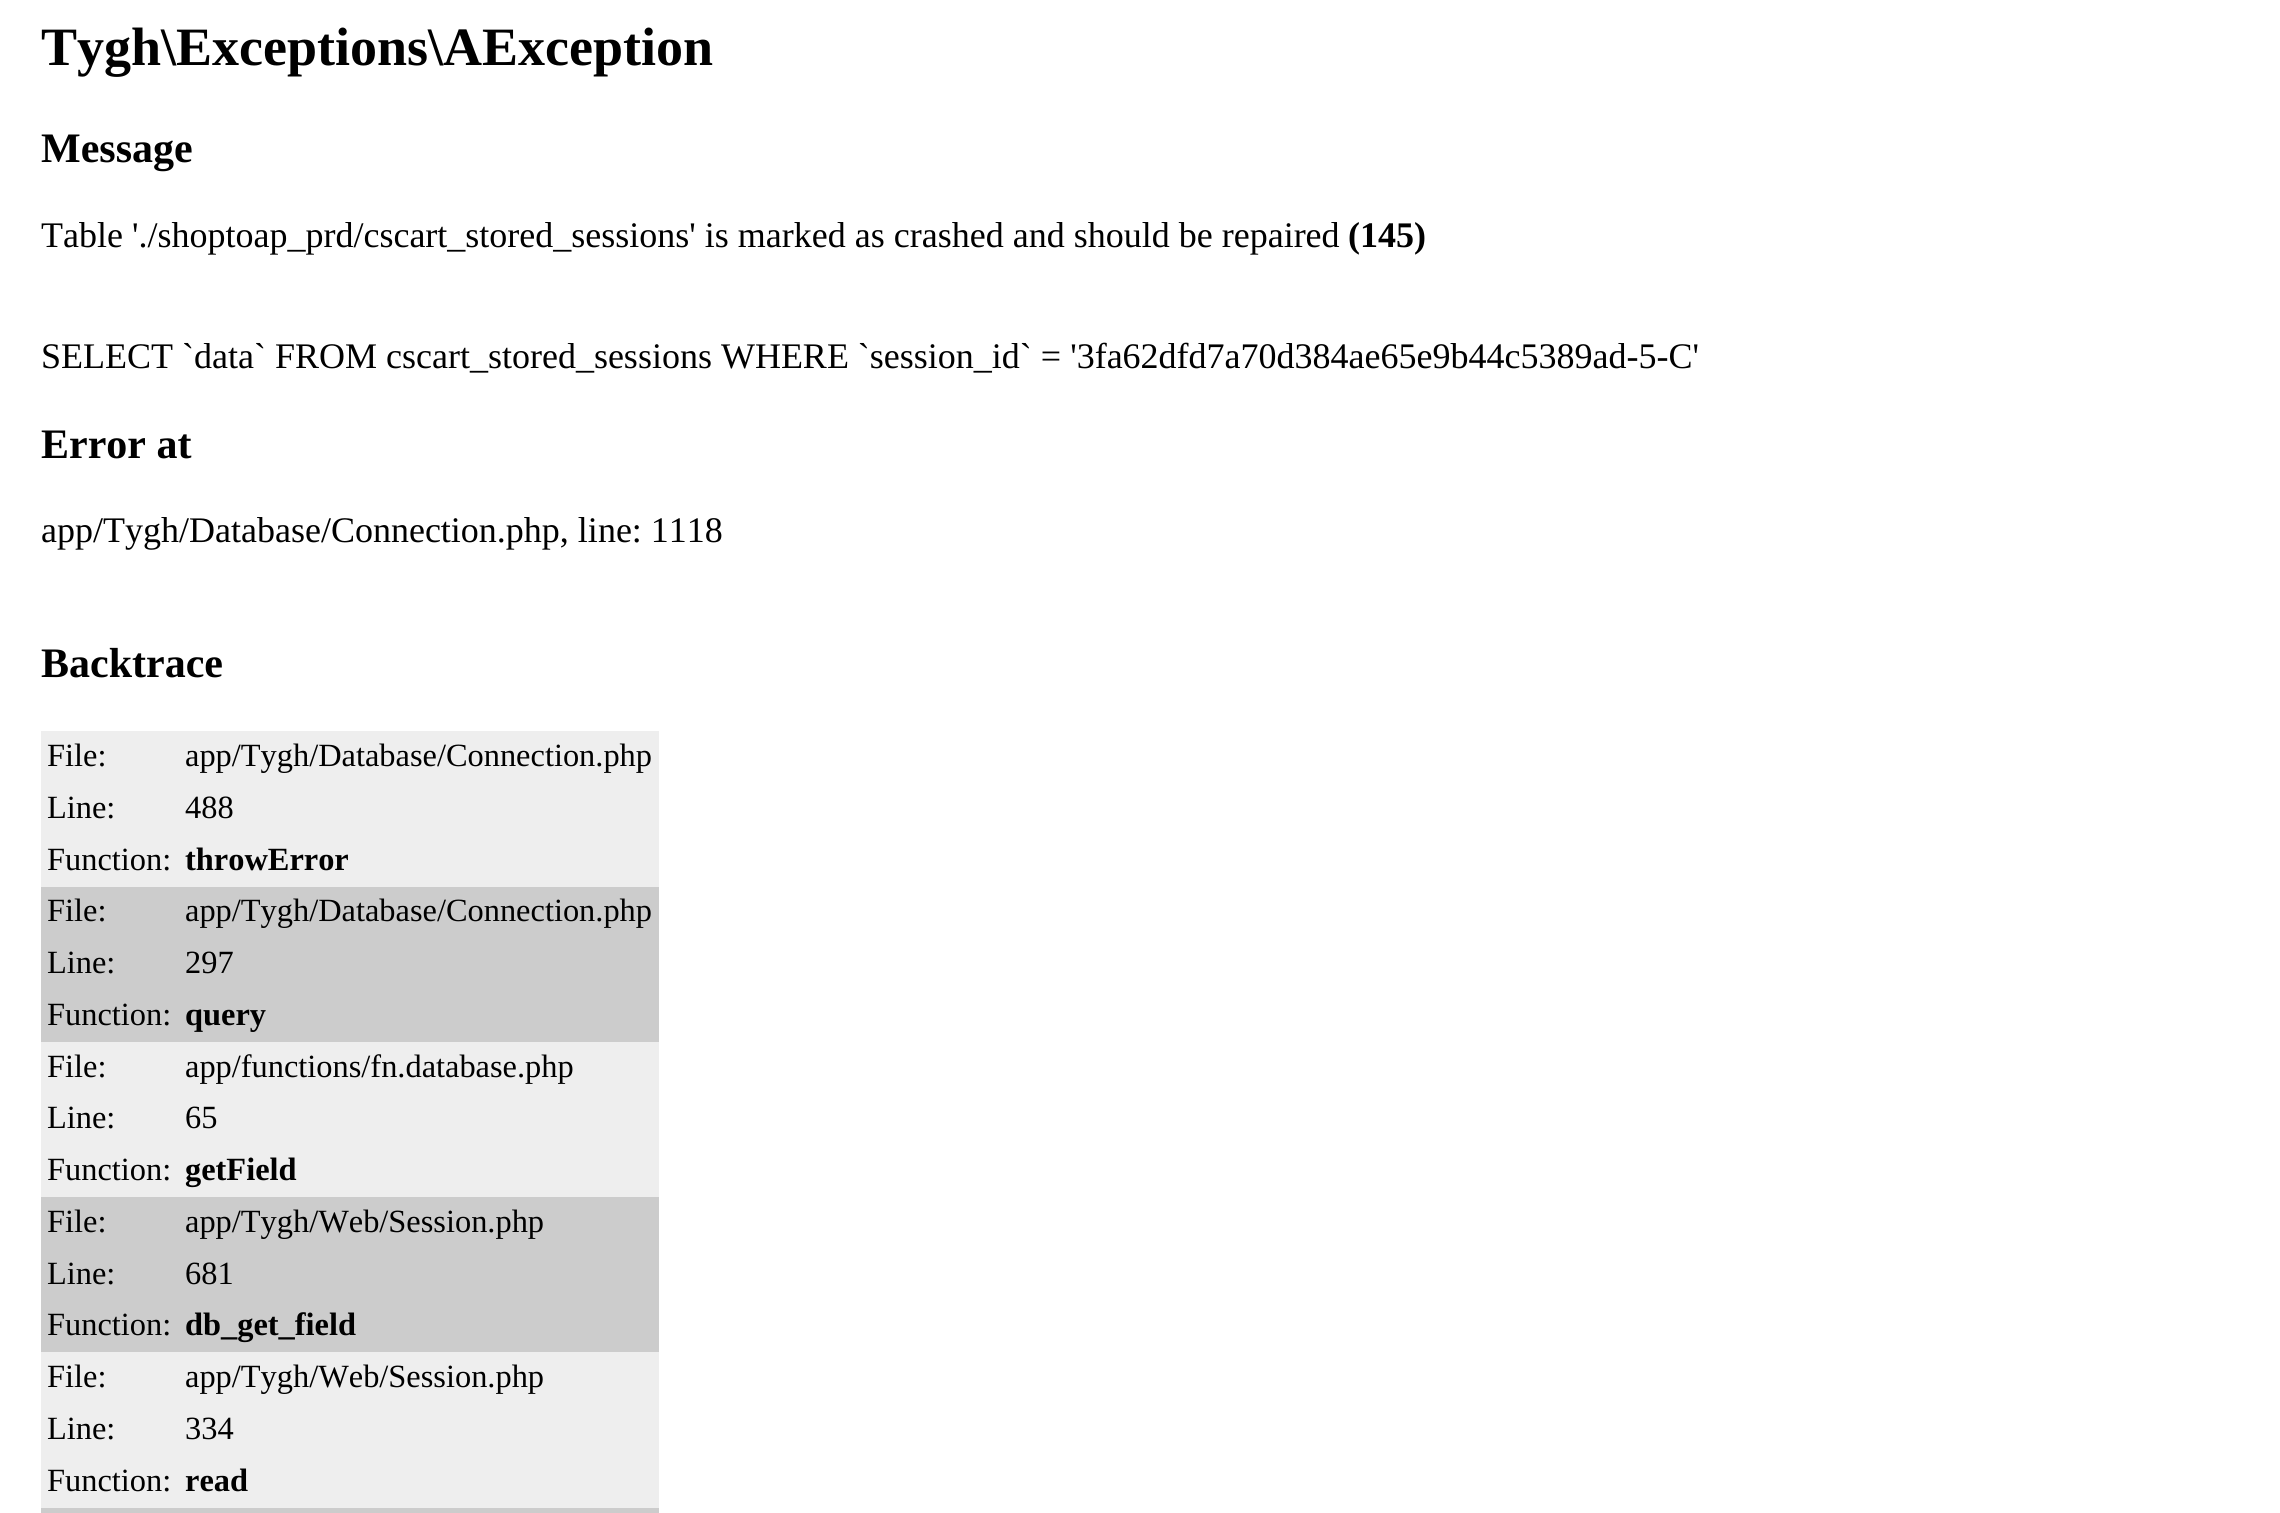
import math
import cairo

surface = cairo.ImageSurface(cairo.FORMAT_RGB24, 2280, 1513)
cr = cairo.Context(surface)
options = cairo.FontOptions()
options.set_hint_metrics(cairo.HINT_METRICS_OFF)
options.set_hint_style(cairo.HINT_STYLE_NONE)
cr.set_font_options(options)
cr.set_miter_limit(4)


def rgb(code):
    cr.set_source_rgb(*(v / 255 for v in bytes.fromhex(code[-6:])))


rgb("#ffffff")
cr.paint()
for x, y, w, h, color in [
    (41, 731, 618, 156, "#eeeeee"),
    (41, 887, 618, 155, "#cccccc"),
    (41, 1042, 618, 155, "#eeeeee"),
    (41, 1197, 618, 155, "#cccccc"),
    (41, 1352, 618, 156, "#eeeeee"),
    (41, 1508, 618, 5, "#cccccc"),
]:
    rgb(color)
    cr.rectangle(x, y, w, h)
    cr.fill()
cr.select_font_face("Liberation Serif", cairo.FONT_SLANT_NORMAL, cairo.FONT_WEIGHT_BOLD)
cr.set_font_size(54)
rgb("#000000")
cr.move_to(41, 65)
cr.show_text("Tygh\\Exceptions\\AException")
cr.set_font_size(42)
cr.move_to(41, 162)
cr.show_text("Message")
cr.select_font_face("Liberation Serif")
cr.set_font_size(36)
cr.move_to(41, 247)
cr.show_text("Table './shoptoap_prd/cscart_stored_sessions' is marked as crashed and should be repaired")
cr.select_font_face("Liberation Serif", cairo.FONT_SLANT_NORMAL, cairo.FONT_WEIGHT_BOLD)
cr.move_to(1348, 247)
cr.show_text("(145)")
cr.select_font_face("Liberation Serif")
cr.move_to(41, 368)
cr.show_text("SELECT `data` FROM cscart_stored_sessions WHERE `session_id` = '3fa62dfd7a70d384ae65e9b44c5389ad-5-C'")
cr.select_font_face("Liberation Serif", cairo.FONT_SLANT_NORMAL, cairo.FONT_WEIGHT_BOLD)
cr.set_font_size(42)
cr.move_to(41, 458)
cr.show_text("Error at")
cr.select_font_face("Liberation Serif")
cr.set_font_size(36)
cr.move_to(41, 542)
cr.show_text("app/Tygh/Database/Connection.php, line: 1118")
cr.select_font_face("Liberation Serif", cairo.FONT_SLANT_NORMAL, cairo.FONT_WEIGHT_BOLD)
cr.set_font_size(42)
cr.move_to(41, 677)
cr.show_text("Backtrace")
cr.select_font_face("Liberation Serif")
cr.set_font_size(32.4)
for x, y, s in [
    (47, 766, "File:"),
    (185, 766, "app/Tygh/Database/Connection.php"),
    (47, 818, "Line:"),
    (185, 818, "488"),
    (47, 870, "Function:"),
]:
    cr.move_to(x, y)
    cr.show_text(s)
cr.select_font_face("Liberation Serif", cairo.FONT_SLANT_NORMAL, cairo.FONT_WEIGHT_BOLD)
cr.move_to(185, 870)
cr.show_text("throwError")
cr.select_font_face("Liberation Serif")
for x, y, s in [
    (47, 921, "File:"),
    (185, 921, "app/Tygh/Database/Connection.php"),
    (47, 973, "Line:"),
    (185, 973, "297"),
    (47, 1025, "Function:"),
]:
    cr.move_to(x, y)
    cr.show_text(s)
cr.select_font_face("Liberation Serif", cairo.FONT_SLANT_NORMAL, cairo.FONT_WEIGHT_BOLD)
cr.move_to(185, 1025)
cr.show_text("query")
cr.select_font_face("Liberation Serif")
for x, y, s in [
    (47, 1077, "File:"),
    (185, 1077, "app/functions/fn.database.php"),
    (47, 1128, "Line:"),
    (185, 1128, "65"),
    (47, 1180, "Function:"),
]:
    cr.move_to(x, y)
    cr.show_text(s)
cr.select_font_face("Liberation Serif", cairo.FONT_SLANT_NORMAL, cairo.FONT_WEIGHT_BOLD)
cr.move_to(185, 1180)
cr.show_text("getField")
cr.select_font_face("Liberation Serif")
for x, y, s in [
    (47, 1232, "File:"),
    (185, 1232, "app/Tygh/Web/Session.php"),
    (47, 1284, "Line:"),
    (185, 1284, "681"),
    (47, 1335, "Function:"),
]:
    cr.move_to(x, y)
    cr.show_text(s)
cr.select_font_face("Liberation Serif", cairo.FONT_SLANT_NORMAL, cairo.FONT_WEIGHT_BOLD)
cr.move_to(185, 1335)
cr.show_text("db_get_field")
cr.select_font_face("Liberation Serif")
for x, y, s in [
    (47, 1387, "File:"),
    (185, 1387, "app/Tygh/Web/Session.php"),
    (47, 1439, "Line:"),
    (185, 1439, "334"),
    (47, 1491, "Function:"),
]:
    cr.move_to(x, y)
    cr.show_text(s)
cr.select_font_face("Liberation Serif", cairo.FONT_SLANT_NORMAL, cairo.FONT_WEIGHT_BOLD)
cr.move_to(185, 1491)
cr.show_text("read")
surface.write_to_png("page.png")
